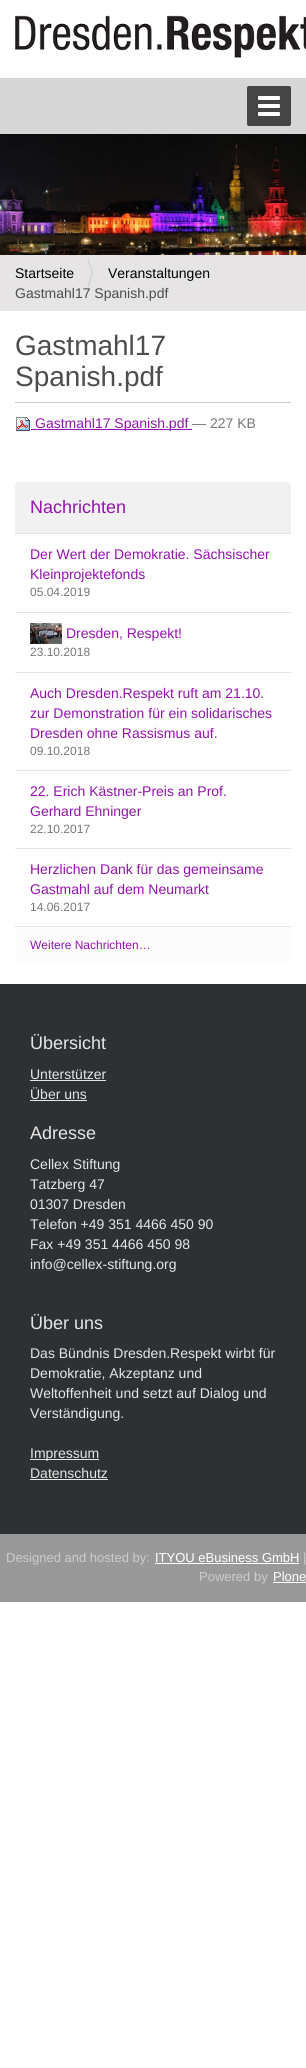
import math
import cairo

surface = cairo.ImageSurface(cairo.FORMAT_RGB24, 306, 2068)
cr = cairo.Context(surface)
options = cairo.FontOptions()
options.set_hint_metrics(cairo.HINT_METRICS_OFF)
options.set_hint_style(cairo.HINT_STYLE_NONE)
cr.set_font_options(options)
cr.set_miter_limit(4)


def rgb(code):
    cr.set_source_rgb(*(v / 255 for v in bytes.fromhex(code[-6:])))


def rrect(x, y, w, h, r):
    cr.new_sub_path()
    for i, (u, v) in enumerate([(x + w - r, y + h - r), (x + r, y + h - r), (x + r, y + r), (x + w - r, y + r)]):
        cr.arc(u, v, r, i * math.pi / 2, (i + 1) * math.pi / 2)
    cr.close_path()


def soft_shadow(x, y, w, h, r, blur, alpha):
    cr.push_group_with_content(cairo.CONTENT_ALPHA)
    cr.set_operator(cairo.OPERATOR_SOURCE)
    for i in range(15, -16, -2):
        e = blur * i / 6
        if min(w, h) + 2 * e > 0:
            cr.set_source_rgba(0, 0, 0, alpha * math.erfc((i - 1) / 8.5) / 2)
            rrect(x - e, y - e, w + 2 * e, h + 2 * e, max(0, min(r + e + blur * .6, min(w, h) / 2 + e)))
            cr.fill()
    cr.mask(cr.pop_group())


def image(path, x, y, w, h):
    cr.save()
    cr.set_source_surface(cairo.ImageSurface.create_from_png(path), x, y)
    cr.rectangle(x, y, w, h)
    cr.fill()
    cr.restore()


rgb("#ffffff")
cr.paint()
image("img/1.png", 15, 15, 291, 43)
image("img/2.png", 0, 134, 306, 121)
rgb("#000000")
soft_shadow(0, 79, 306, 56, 0, 1.5, 0.17)
rgb("#d6d6d6")
cr.rectangle(0, 78, 306, 56)
cr.fill()
rgb("#454545")
rrect(247.5, 86.5, 43, 39, 1.5)
cr.fill_preserve()
cr.set_line_width(1)
cr.stroke()
rgb("#ffffff")
rrect(258, 96, 22, 4, 1)
cr.fill()
rrect(258, 104, 22, 4, 1)
cr.fill()
rrect(258, 112, 22, 4, 1)
cr.fill()
rgb("#e6e4e4")
cr.rectangle(0, 255, 306, 56)
cr.fill()
rgb("#cccccc")
cr.new_path()
cr.move_to(88, 288)
cr.line_to(88, 258)
cr.line_to(93, 273)
cr.close_path()
cr.fill()
rgb("#e6e4e4")
cr.new_path()
cr.move_to(87, 288)
cr.line_to(87, 258)
cr.line_to(92, 273)
cr.close_path()
cr.fill()
rgb("#cccccc")
cr.rectangle(15, 402, 276, 1)
cr.fill()
image("img/3.png", 16, 417, 14, 14)
rgb("#9413ae")
cr.rectangle(31, 429, 161, 1)
cr.fill()
rgb("#f2f1f1")
cr.new_path()
cr.move_to(19, 482)
cr.line_to(287, 482)
cr.curve_to(289, 482, 291, 484, 291, 486)
cr.line_to(291, 533)
cr.line_to(15, 533)
cr.line_to(15, 486)
cr.curve_to(15, 484, 17, 482, 19, 482)
cr.close_path()
cr.fill()
rgb("#e5e5e5")
cr.rectangle(15, 533, 276, 1)
cr.fill()
cr.rectangle(15, 612, 276, 1)
cr.fill()
image("img/4.png", 30, 623, 32, 21)
for x, y, w, h, color in [
    (15, 672, 276, 1, "#e5e5e5"),
    (15, 770, 276, 1, "#e5e5e5"),
    (15, 848, 276, 1, "#e5e5e5"),
]:
    rgb(color)
    cr.rectangle(x, y, w, h)
    cr.fill()
rgb("#fcfcfd")
cr.new_path()
cr.move_to(15, 926)
cr.line_to(291, 926)
cr.line_to(291, 960)
cr.curve_to(291, 962, 289, 964, 287, 964)
cr.line_to(19, 964)
cr.curve_to(17, 964, 15, 962, 15, 960)
cr.close_path()
cr.fill()
for x, y, w, h, color in [
    (15, 926, 276, 1, "#e5e5e5"),
    (0, 984, 306, 550, "#2e3133"),
    (30, 1080, 76, 1, "#e6e6e6"),
    (30, 1100, 57, 1, "#e6e6e6"),
    (30, 1459, 69, 1, "#e6e6e6"),
    (30, 1479, 78, 1, "#e6e6e6"),
    (0, 1534, 306, 68, "#999999"),
    (155, 1563, 144, 1, "#ffffff"),
    (273, 1582, 33, 1, "#ffffff"),
]:
    rgb(color)
    cr.rectangle(x, y, w, h)
    cr.fill()
cr.select_font_face("Liberation Sans")
cr.set_font_size(14)
rgb("#000000")
cr.move_to(15, 278)
cr.show_text("Startseite")
cr.move_to(108, 278)
cr.show_text("Veranstaltungen")
rgb("#4d4d4d")
cr.move_to(15, 298)
cr.show_text("Gastmahl17 Spanish.pdf")
cr.set_font_size(28)
cr.move_to(15, 355)
cr.show_text("Gastmahl17")
cr.move_to(15, 386)
cr.show_text("Spanish.pdf")
cr.set_font_size(14)
rgb("#9413ae")
cr.move_to(35, 428)
cr.show_text("Gastmahl17 Spanish.pdf")
rgb("#777777")
cr.move_to(192, 428)
cr.show_text("— 227 KB")
cr.set_font_size(18)
rgb("#9413ae")
cr.move_to(30, 513)
cr.show_text("Nachrichten")
cr.set_font_size(14)
cr.move_to(30, 559)
cr.show_text("Der Wert der Demokratie. Sächsischer")
cr.move_to(30, 579)
cr.show_text("Kleinprojektefonds")
cr.set_font_size(12)
rgb("#777777")
cr.move_to(30, 596)
cr.show_text("05.04.2019")
cr.set_font_size(14)
rgb("#9413ae")
cr.move_to(66, 638)
cr.show_text("Dresden, Respekt!")
cr.set_font_size(12)
rgb("#777777")
cr.move_to(30, 656)
cr.show_text("23.10.2018")
cr.set_font_size(14)
rgb("#9413ae")
for x, y, s in [
    (30, 698, "Auch Dresden.Respekt ruft am 21.10."),
    (30, 718, "zur Demonstration für ein solidarisches"),
    (30, 738, "Dresden ohne Rassismus auf."),
]:
    cr.move_to(x, y)
    cr.show_text(s)
cr.set_font_size(12)
rgb("#777777")
cr.move_to(30, 755)
cr.show_text("09.10.2018")
cr.set_font_size(14)
rgb("#9413ae")
cr.move_to(30, 796)
cr.show_text("22. Erich Kästner-Preis an Prof.")
cr.move_to(30, 816)
cr.show_text("Gerhard Ehninger")
cr.set_font_size(12)
rgb("#777777")
cr.move_to(30, 833)
cr.show_text("22.10.2017")
cr.set_font_size(14)
rgb("#9413ae")
cr.move_to(30, 874)
cr.show_text("Herzlichen Dank für das gemeinsame")
cr.move_to(30, 894)
cr.show_text("Gastmahl auf dem Neumarkt")
cr.set_font_size(12)
rgb("#777777")
cr.move_to(30, 911)
cr.show_text("14.06.2017")
rgb("#9413ae")
cr.move_to(30, 949)
cr.show_text("Weitere Nachrichten…")
cr.set_font_size(18)
rgb("#e6e6e6")
cr.move_to(30, 1049)
cr.show_text("Übersicht")
cr.set_font_size(14)
cr.move_to(30, 1079)
cr.show_text("Unterstützer")
cr.move_to(30, 1099)
cr.show_text("Über uns")
cr.set_font_size(18)
cr.move_to(30, 1139)
cr.show_text("Adresse")
cr.set_font_size(14)
for x, y, s in [
    (30, 1169, "Cellex Stiftung"),
    (30, 1189, "Tatzberg 47"),
    (30, 1209, "01307 Dresden"),
    (30, 1229, "Telefon +49 351 4466 450 90"),
    (30, 1249, "Fax +49 351 4466 450 98"),
    (30, 1269, "info@cellex-stiftung.org"),
]:
    cr.move_to(x, y)
    cr.show_text(s)
cr.set_font_size(18)
cr.move_to(30, 1329)
cr.show_text("Über uns")
cr.set_font_size(14)
for x, y, s in [
    (30, 1358, "Das Bündnis Dresden.Respekt wirbt für"),
    (30, 1378, "Demokratie, Akzeptanz und"),
    (30, 1398, "Weltoffenheit und setzt auf Dialog und"),
    (30, 1418, "Verständigung."),
    (30, 1458, "Impressum"),
    (30, 1478, "Datenschutz"),
]:
    cr.move_to(x, y)
    cr.show_text(s)
cr.set_font_size(13)
rgb("#cccccc")
cr.move_to(6, 1562)
cr.show_text("Designed and hosted by:")
rgb("#ffffff")
cr.move_to(155, 1562)
cr.show_text("ITYOU eBusiness GmbH")
rgb("#cccccc")
cr.move_to(303, 1562)
cr.show_text("|")
cr.move_to(199, 1581)
cr.show_text("Powered by")
rgb("#ffffff")
cr.move_to(273, 1581)
cr.show_text("Plone")
surface.write_to_png("page.png")
